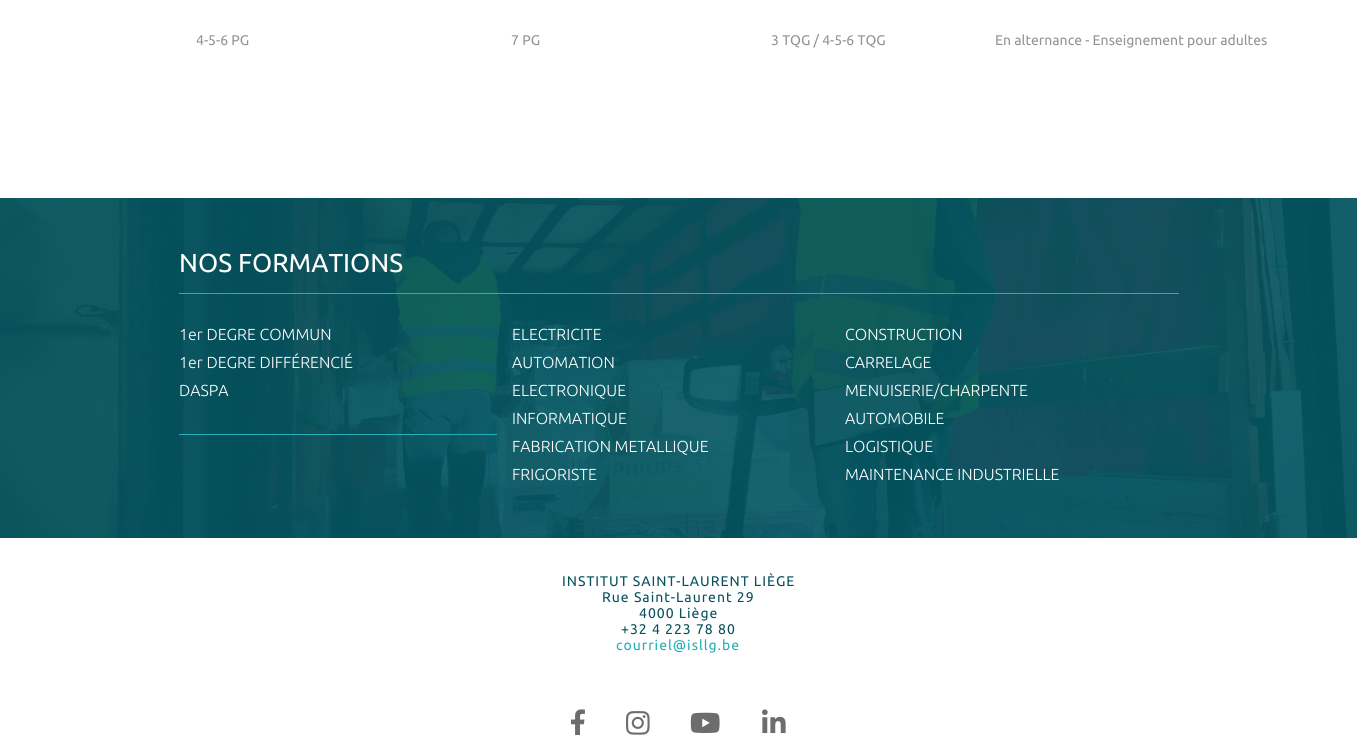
import math
import cairo

surface = cairo.ImageSurface(cairo.FORMAT_RGB24, 1357, 735)
cr = cairo.Context(surface)
options = cairo.FontOptions()
options.set_hint_metrics(cairo.HINT_METRICS_OFF)
options.set_hint_style(cairo.HINT_STYLE_NONE)
cr.set_font_options(options)
cr.set_miter_limit(4)


def rgb(code):
    cr.set_source_rgb(*(v / 255 for v in bytes.fromhex(code[-6:])))


def tracked(x, y, s, letter, word):
    cr.move_to(x, y)
    for ch in s:
        cr.show_text(ch)
        cr.rel_move_to(letter + word * (ch == ' '), 0)


def image(path, x, y, w, h):
    cr.save()
    cr.set_source_surface(cairo.ImageSurface.create_from_png(path), x, y)
    cr.rectangle(x, y, w, h)
    cr.fill()
    cr.restore()


rgb("#ffffff")
cr.paint()
image("img/1.png", 0, 198, 1357, 340)
rgb("#21afb8")
cr.rectangle(179, 293, 1000, 1)
cr.fill()
cr.rectangle(179, 434, 318, 1)
cr.fill()
image("img/2.png", 571, 709, 14, 26)
image("img/3.png", 626, 711, 24, 24)
image("img/4.png", 690, 712, 30, 21)
image("img/5.png", 762, 709, 24, 24)
cr.select_font_face("Ubuntu")
cr.set_font_size(14)
rgb("#939393")
for x, y, s in [
    (196, 45, "4-5-6 PG"),
    (511, 45, "7 PG"),
    (771, 45, "3 TQG / 4-5-6 TQG"),
    (995, 45, "En alternance - Enseignement pour adultes"),
]:
    cr.move_to(x, y)
    cr.show_text(s)
cr.set_font_size(26)
rgb("#ffffff")
cr.move_to(179, 272)
cr.show_text("NOS FORMATIONS")
cr.select_font_face("Ubuntu Light")
cr.set_font_size(16)
for x, y, s in [
    (179, 340, "1er DEGRE COMMUN"),
    (179, 368, "1er DEGRE DIFFÉRENCIÉ"),
    (179, 396, "DASPA"),
    (512, 340, "ELECTRICITE"),
    (512, 368, "AUTOMATION"),
    (512, 396, "ELECTRONIQUE"),
    (512, 424, "INFORMATIQUE"),
    (512, 452, "FABRICATION METALLIQUE"),
    (512, 480, "FRIGORISTE"),
    (845, 340, "CONSTRUCTION"),
    (845, 368, "CARRELAGE"),
    (845, 396, "MENUISERIE/CHARPENTE"),
    (845, 424, "AUTOMOBILE"),
    (845, 452, "LOGISTIQUE"),
    (845, 480, "MAINTENANCE INDUSTRIELLE"),
]:
    cr.move_to(x, y)
    cr.show_text(s)
cr.select_font_face("Ubuntu")
cr.set_font_size(14)
rgb("#07515c")
for x, y, s in [
    (562, 586, "INSTITUT SAINT-LAURENT LIÈGE"),
    (602, 602, "Rue Saint-Laurent 29"),
    (639, 618, "4000 Liège"),
    (621, 634, "+32 4 223 78 80"),
]:
    tracked(x, y, s, 1, 0)
rgb("#21afb8")
tracked(616, 650, "courriel@isllg.be", 1, 0)
surface.write_to_png("page.png")
